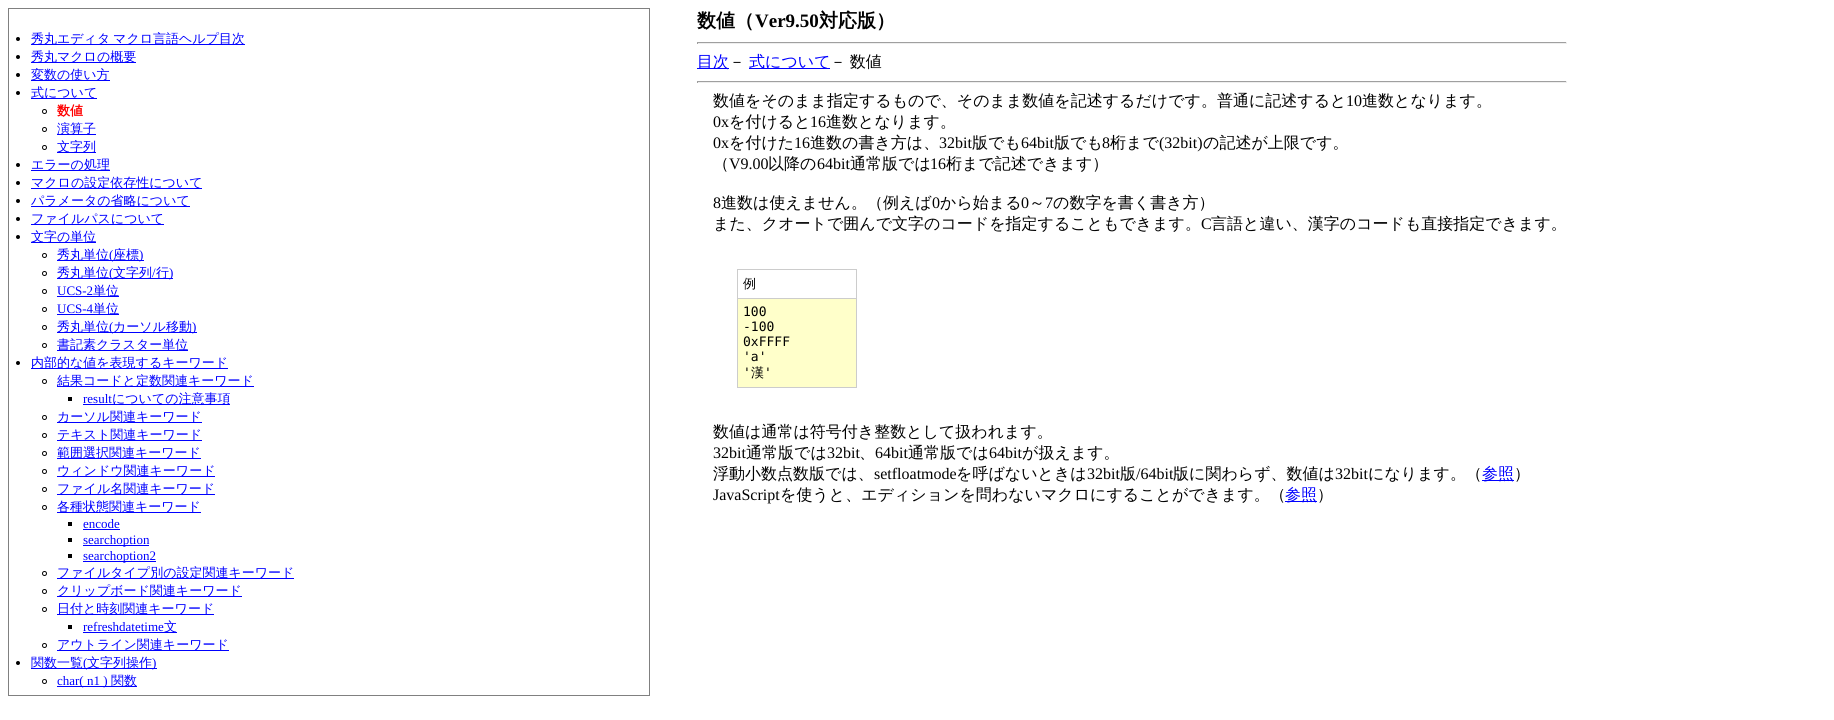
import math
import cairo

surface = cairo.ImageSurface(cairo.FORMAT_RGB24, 1834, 720)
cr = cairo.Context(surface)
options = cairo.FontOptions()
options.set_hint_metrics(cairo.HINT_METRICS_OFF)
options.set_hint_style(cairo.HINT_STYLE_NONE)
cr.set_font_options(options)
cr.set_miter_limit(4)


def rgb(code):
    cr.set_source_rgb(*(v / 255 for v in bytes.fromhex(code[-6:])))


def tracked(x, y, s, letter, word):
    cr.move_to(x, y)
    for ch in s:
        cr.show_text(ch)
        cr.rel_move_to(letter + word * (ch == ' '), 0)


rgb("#ffffff")
cr.paint()
cr.rectangle(8.5, 8.5, 641, 687)
rgb("#808080")
cr.set_line_width(1)
cr.stroke()
rgb("#000000")
cr.arc(18, 39, 2, 0, 2 * math.pi)
cr.fill()
rgb("#0000ff")
cr.rectangle(31, 44, 214, 1)
cr.fill()
rgb("#000000")
cr.arc(18, 57, 2, 0, 2 * math.pi)
cr.fill()
rgb("#0000ff")
cr.rectangle(31, 62, 105, 1)
cr.fill()
rgb("#000000")
cr.arc(18, 75, 2, 0, 2 * math.pi)
cr.fill()
rgb("#0000ff")
cr.rectangle(31, 80, 79, 1)
cr.fill()
rgb("#000000")
cr.arc(18, 93, 2, 0, 2 * math.pi)
cr.fill()
rgb("#0000ff")
cr.rectangle(31, 98, 66, 1)
cr.fill()
cr.arc(44.5, 111.5, 2, 0, 2 * math.pi)
rgb("#000000")
cr.stroke()
cr.arc(44.5, 129.5, 2, 0, 2 * math.pi)
cr.stroke()
rgb("#0000ff")
cr.rectangle(57, 134, 39, 1)
cr.fill()
cr.arc(44.5, 147.5, 2, 0, 2 * math.pi)
rgb("#000000")
cr.stroke()
rgb("#0000ff")
cr.rectangle(57, 152, 39, 1)
cr.fill()
rgb("#000000")
cr.arc(18, 165, 2, 0, 2 * math.pi)
cr.fill()
rgb("#0000ff")
cr.rectangle(31, 170, 79, 1)
cr.fill()
rgb("#000000")
cr.arc(18, 183, 2, 0, 2 * math.pi)
cr.fill()
rgb("#0000ff")
cr.rectangle(31, 188, 171, 1)
cr.fill()
rgb("#000000")
cr.arc(18, 201, 2, 0, 2 * math.pi)
cr.fill()
rgb("#0000ff")
cr.rectangle(31, 206, 159, 1)
cr.fill()
rgb("#000000")
cr.arc(18, 219, 2, 0, 2 * math.pi)
cr.fill()
rgb("#0000ff")
cr.rectangle(31, 224, 133, 1)
cr.fill()
rgb("#000000")
cr.arc(18, 237, 2, 0, 2 * math.pi)
cr.fill()
rgb("#0000ff")
cr.rectangle(31, 242, 65, 1)
cr.fill()
cr.arc(44.5, 255.5, 2, 0, 2 * math.pi)
rgb("#000000")
cr.stroke()
rgb("#0000ff")
cr.rectangle(57, 260, 87, 1)
cr.fill()
cr.rectangle(57, 278, 116, 1)
cr.fill()
cr.arc(44.5, 273.5, 2, 0, 2 * math.pi)
rgb("#000000")
cr.stroke()
cr.arc(44.5, 291.5, 2, 0, 2 * math.pi)
cr.stroke()
rgb("#0000ff")
cr.rectangle(57, 296, 62, 1)
cr.fill()
cr.arc(44.5, 309.5, 2, 0, 2 * math.pi)
rgb("#000000")
cr.stroke()
rgb("#0000ff")
cr.rectangle(57, 314, 62, 1)
cr.fill()
cr.arc(44.5, 327.5, 2, 0, 2 * math.pi)
rgb("#000000")
cr.stroke()
rgb("#0000ff")
cr.rectangle(57, 332, 140, 1)
cr.fill()
cr.arc(44.5, 345.5, 2, 0, 2 * math.pi)
rgb("#000000")
cr.stroke()
rgb("#0000ff")
cr.rectangle(57, 350, 131, 1)
cr.fill()
rgb("#000000")
cr.arc(18, 363, 2, 0, 2 * math.pi)
cr.fill()
rgb("#0000ff")
cr.rectangle(31, 368, 197, 1)
cr.fill()
cr.arc(44.5, 381.5, 2, 0, 2 * math.pi)
rgb("#000000")
cr.stroke()
for x, y, w, h, color in [
    (57, 386, 197, 1, "#0000ff"),
    (68, 397, 4, 4, "#000000"),
    (83, 404, 147, 1, "#0000ff"),
]:
    rgb(color)
    cr.rectangle(x, y, w, h)
    cr.fill()
cr.arc(44.5, 417.5, 2, 0, 2 * math.pi)
rgb("#000000")
cr.stroke()
rgb("#0000ff")
cr.rectangle(57, 422, 145, 1)
cr.fill()
cr.arc(44.5, 435.5, 2, 0, 2 * math.pi)
rgb("#000000")
cr.stroke()
rgb("#0000ff")
cr.rectangle(57, 440, 145, 1)
cr.fill()
cr.arc(44.5, 453.5, 2, 0, 2 * math.pi)
rgb("#000000")
cr.stroke()
rgb("#0000ff")
cr.rectangle(57, 458, 144, 1)
cr.fill()
cr.arc(44.5, 471.5, 2, 0, 2 * math.pi)
rgb("#000000")
cr.stroke()
rgb("#0000ff")
cr.rectangle(57, 476, 158, 1)
cr.fill()
cr.arc(44.5, 489.5, 2, 0, 2 * math.pi)
rgb("#000000")
cr.stroke()
rgb("#0000ff")
cr.rectangle(57, 494, 158, 1)
cr.fill()
cr.arc(44.5, 507.5, 2, 0, 2 * math.pi)
rgb("#000000")
cr.stroke()
for x, y, w, h, color in [
    (57, 512, 144, 1, "#0000ff"),
    (68, 522, 4, 4, "#000000"),
    (83, 529, 37, 1, "#0000ff"),
    (68, 538, 4, 4, "#000000"),
    (83, 545, 66, 1, "#0000ff"),
    (68, 554, 4, 4, "#000000"),
    (83, 561, 73, 1, "#0000ff"),
]:
    rgb(color)
    cr.rectangle(x, y, w, h)
    cr.fill()
cr.arc(44.5, 573.5, 2, 0, 2 * math.pi)
rgb("#000000")
cr.stroke()
rgb("#0000ff")
cr.rectangle(57, 578, 237, 1)
cr.fill()
cr.arc(44.5, 591.5, 2, 0, 2 * math.pi)
rgb("#000000")
cr.stroke()
rgb("#0000ff")
cr.rectangle(57, 596, 185, 1)
cr.fill()
cr.arc(44.5, 609.5, 2, 0, 2 * math.pi)
rgb("#000000")
cr.stroke()
for x, y, w, h, color in [
    (57, 614, 157, 1, "#0000ff"),
    (68, 625, 4, 4, "#000000"),
    (83, 632, 94, 1, "#0000ff"),
]:
    rgb(color)
    cr.rectangle(x, y, w, h)
    cr.fill()
cr.arc(44.5, 645.5, 2, 0, 2 * math.pi)
rgb("#000000")
cr.stroke()
rgb("#0000ff")
cr.rectangle(57, 650, 172, 1)
cr.fill()
rgb("#000000")
cr.arc(18, 663, 2, 0, 2 * math.pi)
cr.fill()
rgb("#0000ff")
cr.rectangle(31, 668, 126, 1)
cr.fill()
cr.arc(44.5, 681.5, 2, 0, 2 * math.pi)
rgb("#000000")
cr.stroke()
for x, y, w, h, color in [
    (57, 686, 80, 1, "#0000ff"),
    (697, 42, 870, 1, "#9f9f9f"),
    (1566, 42, 1, 2, "#eeeeee"),
    (697, 43, 870, 1, "#eeeeee"),
    (697, 42, 1, 2, "#9f9f9f"),
    (697, 68, 32, 1, "#0000ff"),
    (749, 68, 81, 1, "#0000ff"),
    (697, 81, 870, 1, "#9f9f9f"),
    (1566, 81, 1, 2, "#eeeeee"),
    (697, 82, 870, 1, "#eeeeee"),
    (697, 81, 1, 2, "#9f9f9f"),
    (737, 269, 120, 1, "#cccccc"),
    (856, 269, 1, 119, "#cccccc"),
    (737, 387, 120, 1, "#cccccc"),
    (737, 269, 1, 119, "#cccccc"),
    (738, 299, 118, 88, "#ffffca"),
    (737, 298, 120, 1, "#cccccc"),
    (1482, 480, 32, 1, "#0000ff"),
    (1285, 501, 32, 1, "#0000ff"),
]:
    rgb(color)
    cr.rectangle(x, y, w, h)
    cr.fill()
cr.select_font_face("WenQuanYi Zen Hei Medium")
cr.set_font_size(13)
tracked(31, 43, "秀丸エディタ マクロ言語ヘルプ目次", 0, -1)
for x, y, s in [
    (31, 61, "秀丸マクロの概要"),
    (31, 79, "変数の使い方"),
    (31, 97, "式について"),
]:
    cr.move_to(x, y)
    cr.show_text(s)
cr.select_font_face("WenQuanYi Zen Hei", cairo.FONT_SLANT_NORMAL, cairo.FONT_WEIGHT_BOLD)
rgb("#ff0000")
cr.move_to(57, 115)
cr.show_text("数値")
cr.select_font_face("WenQuanYi Zen Hei Medium")
rgb("#0000ff")
for x, y, s in [
    (57, 133, "演算子"),
    (57, 151, "文字列"),
    (31, 169, "エラーの処理"),
    (31, 187, "マクロの設定依存性について"),
    (31, 205, "パラメータの省略について"),
    (31, 223, "ファイルパスについて"),
    (31, 241, "文字の単位"),
    (57, 259, "秀丸単位"),
]:
    cr.move_to(x, y)
    cr.show_text(s)
cr.select_font_face("Liberation Serif")
cr.move_to(109, 259)
cr.show_text("(")
cr.select_font_face("WenQuanYi Zen Hei Medium")
cr.move_to(113, 259)
cr.show_text("座標")
cr.select_font_face("Liberation Serif")
cr.move_to(139, 259)
cr.show_text(")")
cr.select_font_face("WenQuanYi Zen Hei Medium")
cr.move_to(57, 277)
cr.show_text("秀丸単位")
cr.select_font_face("Liberation Serif")
cr.move_to(109, 277)
cr.show_text("(")
cr.select_font_face("WenQuanYi Zen Hei Medium")
cr.move_to(113, 277)
cr.show_text("文字列 行")
cr.select_font_face("Liberation Serif")
for x, y, s in [
    (152, 277, "/"),
    (169, 277, ")"),
    (57, 295, "UCS-2"),
]:
    cr.move_to(x, y)
    cr.show_text(s)
cr.select_font_face("WenQuanYi Zen Hei Medium")
cr.move_to(93, 295)
cr.show_text("単位")
cr.select_font_face("Liberation Serif")
cr.move_to(57, 313)
cr.show_text("UCS-4")
cr.select_font_face("WenQuanYi Zen Hei Medium")
cr.move_to(93, 313)
cr.show_text("単位")
cr.move_to(57, 331)
cr.show_text("秀丸単位")
cr.select_font_face("Liberation Serif")
cr.move_to(109, 331)
cr.show_text("(")
cr.select_font_face("WenQuanYi Zen Hei Medium")
cr.move_to(113, 331)
cr.show_text("カーソル移動")
cr.select_font_face("Liberation Serif")
cr.move_to(192, 331)
cr.show_text(")")
cr.select_font_face("WenQuanYi Zen Hei Medium")
for x, y, s in [
    (57, 349, "書記素クラスター単位"),
    (31, 367, "内部的な値を表現するキーワード"),
    (57, 385, "結果コードと定数関連キーワード"),
]:
    cr.move_to(x, y)
    cr.show_text(s)
cr.select_font_face("Liberation Serif")
cr.move_to(83, 403)
cr.show_text("result")
cr.select_font_face("WenQuanYi Zen Hei Medium")
for x, y, s in [
    (112, 403, "についての注意事項"),
    (57, 421, "カーソル関連キーワード"),
    (57, 439, "テキスト関連キーワード"),
    (57, 457, "範囲選択関連キーワード"),
    (57, 475, "ウィンドウ関連キーワード"),
    (57, 493, "ファイル名関連キーワード"),
    (57, 511, "各種状態関連キーワード"),
]:
    cr.move_to(x, y)
    cr.show_text(s)
cr.select_font_face("Liberation Serif")
for x, y, s in [
    (83, 528, "encode"),
    (83, 544, "searchoption"),
    (83, 560, "searchoption2"),
]:
    cr.move_to(x, y)
    cr.show_text(s)
cr.select_font_face("WenQuanYi Zen Hei Medium")
for x, y, s in [
    (57, 577, "ファイルタイプ別の設定関連キーワード"),
    (57, 595, "クリップボード関連キーワード"),
    (57, 613, "日付と時刻関連キーワード"),
]:
    cr.move_to(x, y)
    cr.show_text(s)
cr.select_font_face("Liberation Serif")
cr.move_to(83, 631)
cr.show_text("refreshdatetime")
cr.select_font_face("WenQuanYi Zen Hei Medium")
for x, y, s in [
    (164, 631, "文"),
    (57, 649, "アウトライン関連キーワード"),
    (31, 667, "関数一覧"),
]:
    cr.move_to(x, y)
    cr.show_text(s)
cr.select_font_face("Liberation Serif")
cr.move_to(83, 667)
cr.show_text("(")
cr.select_font_face("WenQuanYi Zen Hei Medium")
cr.move_to(87, 667)
cr.show_text("文字列操作")
cr.select_font_face("Liberation Serif")
cr.move_to(152, 667)
cr.show_text(")")
cr.move_to(57, 685)
cr.show_text("char( n1 )")
cr.select_font_face("WenQuanYi Zen Hei Medium")
cr.move_to(111, 685)
cr.show_text("関数")
cr.select_font_face("WenQuanYi Zen Hei", cairo.FONT_SLANT_NORMAL, cairo.FONT_WEIGHT_BOLD)
cr.set_font_size(19)
rgb("#000000")
cr.move_to(697, 27)
cr.show_text("数値（")
cr.select_font_face("Liberation Serif", cairo.FONT_SLANT_NORMAL, cairo.FONT_WEIGHT_BOLD)
cr.move_to(755, 27)
cr.show_text("Ver9.50")
cr.select_font_face("WenQuanYi Zen Hei", cairo.FONT_SLANT_NORMAL, cairo.FONT_WEIGHT_BOLD)
cr.move_to(819, 27)
cr.show_text("対応版）")
cr.select_font_face("WenQuanYi Zen Hei Medium")
cr.set_font_size(16)
rgb("#0000ff")
cr.move_to(697, 67)
cr.show_text("目次")
rgb("#000000")
cr.move_to(729, 67)
cr.show_text("－")
rgb("#0000ff")
cr.move_to(749, 67)
cr.show_text("式について")
rgb("#000000")
tracked(830, 67, "－ 数値", 0, -1)
cr.move_to(713, 106)
cr.show_text("数値をそのまま指定するもので、そのまま数値を記述するだけです。普通に記述すると")
cr.select_font_face("Liberation Serif")
cr.move_to(1346, 106)
cr.show_text("10")
cr.select_font_face("WenQuanYi Zen Hei Medium")
cr.move_to(1362, 106)
cr.show_text("進数となります。")
cr.select_font_face("Liberation Serif")
cr.move_to(713, 127)
cr.show_text("0x")
cr.select_font_face("WenQuanYi Zen Hei Medium")
cr.move_to(729, 127)
cr.show_text("を付けると")
cr.select_font_face("Liberation Serif")
cr.move_to(810, 127)
cr.show_text("16")
cr.select_font_face("WenQuanYi Zen Hei Medium")
cr.move_to(826, 127)
cr.show_text("進数となります。")
cr.select_font_face("Liberation Serif")
cr.move_to(713, 148)
cr.show_text("0x")
cr.select_font_face("WenQuanYi Zen Hei Medium")
cr.move_to(729, 148)
cr.show_text("を付けた")
cr.select_font_face("Liberation Serif")
cr.move_to(794, 148)
cr.show_text("16")
cr.select_font_face("WenQuanYi Zen Hei Medium")
cr.move_to(810, 148)
cr.show_text("進数の書き方は、")
cr.select_font_face("Liberation Serif")
cr.move_to(939, 148)
cr.show_text("32bit")
cr.select_font_face("WenQuanYi Zen Hei Medium")
cr.move_to(972, 148)
cr.show_text("版でも")
cr.select_font_face("Liberation Serif")
cr.move_to(1021, 148)
cr.show_text("64bit")
cr.select_font_face("WenQuanYi Zen Hei Medium")
cr.move_to(1054, 148)
cr.show_text("版でも")
cr.select_font_face("Liberation Serif")
cr.move_to(1102, 148)
cr.show_text("8")
cr.select_font_face("WenQuanYi Zen Hei Medium")
cr.move_to(1110, 148)
cr.show_text("桁まで")
cr.select_font_face("Liberation Serif")
cr.move_to(1159, 148)
cr.show_text("(32bit)")
cr.select_font_face("WenQuanYi Zen Hei Medium")
cr.move_to(1203, 148)
cr.show_text("の記述が上限です。")
cr.move_to(713, 169)
cr.show_text("（")
cr.select_font_face("Liberation Serif")
cr.move_to(729, 169)
cr.show_text("V9.00")
cr.select_font_face("WenQuanYi Zen Hei Medium")
cr.move_to(768, 169)
cr.show_text("以降の")
cr.select_font_face("Liberation Serif")
cr.move_to(817, 169)
cr.show_text("64bit")
cr.select_font_face("WenQuanYi Zen Hei Medium")
cr.move_to(850, 169)
cr.show_text("通常版では")
cr.select_font_face("Liberation Serif")
cr.move_to(930, 169)
cr.show_text("16")
cr.select_font_face("WenQuanYi Zen Hei Medium")
cr.move_to(946, 169)
cr.show_text("桁まで記述できます）")
cr.select_font_face("Liberation Serif")
cr.move_to(713, 208)
cr.show_text("8")
cr.select_font_face("WenQuanYi Zen Hei Medium")
cr.move_to(721, 208)
cr.show_text("進数は使えません。（例えば")
cr.select_font_face("Liberation Serif")
cr.move_to(932, 208)
cr.show_text("0")
cr.select_font_face("WenQuanYi Zen Hei Medium")
cr.move_to(940, 208)
cr.show_text("から始まる")
cr.select_font_face("Liberation Serif")
cr.move_to(1021, 208)
cr.show_text("0")
cr.select_font_face("WenQuanYi Zen Hei Medium")
cr.move_to(1029, 208)
cr.show_text("～")
cr.select_font_face("Liberation Serif")
cr.move_to(1045, 208)
cr.show_text("7")
cr.select_font_face("WenQuanYi Zen Hei Medium")
cr.move_to(1053, 208)
cr.show_text("の数字を書く書き方）")
cr.move_to(713, 229)
cr.show_text("また、クオートで囲んで文字のコードを指定することもできます。")
cr.select_font_face("Liberation Serif")
cr.move_to(1201, 229)
cr.show_text("C")
cr.select_font_face("WenQuanYi Zen Hei Medium")
cr.move_to(1211, 229)
cr.show_text("言語と違い、漢字のコードも直接指定できます。")
cr.set_font_size(13)
cr.move_to(743, 288)
cr.show_text("例")
cr.select_font_face("DejaVu Sans Mono")
for x, y, s in [
    (743, 316, "100"),
    (743, 331, "-100"),
    (743, 346, "0xFFFF"),
    (743, 361, "'a'"),
    (743, 377, "'"),
]:
    cr.move_to(x, y)
    cr.show_text(s)
cr.select_font_face("WenQuanYi Zen Hei Medium")
cr.move_to(751, 377)
cr.show_text("漢")
cr.select_font_face("DejaVu Sans Mono")
cr.move_to(764, 377)
cr.show_text("'")
cr.select_font_face("WenQuanYi Zen Hei Medium")
cr.set_font_size(16)
cr.move_to(713, 437)
cr.show_text("数値は通常は符号付き整数として扱われます。")
cr.select_font_face("Liberation Serif")
cr.move_to(713, 458)
cr.show_text("32bit")
cr.select_font_face("WenQuanYi Zen Hei Medium")
cr.move_to(746, 458)
cr.show_text("通常版では")
cr.select_font_face("Liberation Serif")
cr.move_to(827, 458)
cr.show_text("32bit")
cr.select_font_face("WenQuanYi Zen Hei Medium")
cr.move_to(859, 458)
cr.show_text("、")
cr.select_font_face("Liberation Serif")
cr.move_to(875, 458)
cr.show_text("64bit")
cr.select_font_face("WenQuanYi Zen Hei Medium")
cr.move_to(908, 458)
cr.show_text("通常版では")
cr.select_font_face("Liberation Serif")
cr.move_to(989, 458)
cr.show_text("64bit")
cr.select_font_face("WenQuanYi Zen Hei Medium")
cr.move_to(1022, 458)
cr.show_text("が扱えます。")
cr.move_to(713, 479)
cr.show_text("浮動小数点数版では、")
cr.select_font_face("Liberation Serif")
cr.move_to(874, 479)
cr.show_text("setfloatmode")
cr.select_font_face("WenQuanYi Zen Hei Medium")
cr.move_to(956, 479)
cr.show_text("を呼ばないときは")
cr.select_font_face("Liberation Serif")
cr.move_to(1087, 479)
cr.show_text("32bit")
cr.select_font_face("WenQuanYi Zen Hei Medium")
cr.move_to(1120, 479)
cr.show_text("版")
cr.select_font_face("Liberation Serif")
cr.move_to(1136, 479)
cr.show_text("/64bit")
cr.select_font_face("WenQuanYi Zen Hei Medium")
cr.move_to(1173, 479)
cr.show_text("版に関わらず、数値は")
cr.select_font_face("Liberation Serif")
cr.move_to(1335, 479)
cr.show_text("32bit")
cr.select_font_face("WenQuanYi Zen Hei Medium")
cr.move_to(1368, 479)
cr.show_text("になります。（")
rgb("#0000ff")
cr.move_to(1482, 479)
cr.show_text("参照")
rgb("#000000")
cr.move_to(1514, 479)
cr.show_text("）")
cr.select_font_face("Liberation Serif")
cr.move_to(713, 500)
cr.show_text("JavaScript")
cr.select_font_face("WenQuanYi Zen Hei Medium")
cr.move_to(780, 500)
cr.show_text("を使うと、エディションを問わないマクロにすることができます。（")
rgb("#0000ff")
cr.move_to(1285, 500)
cr.show_text("参照")
rgb("#000000")
cr.move_to(1317, 500)
cr.show_text("）")
surface.write_to_png("page.png")
